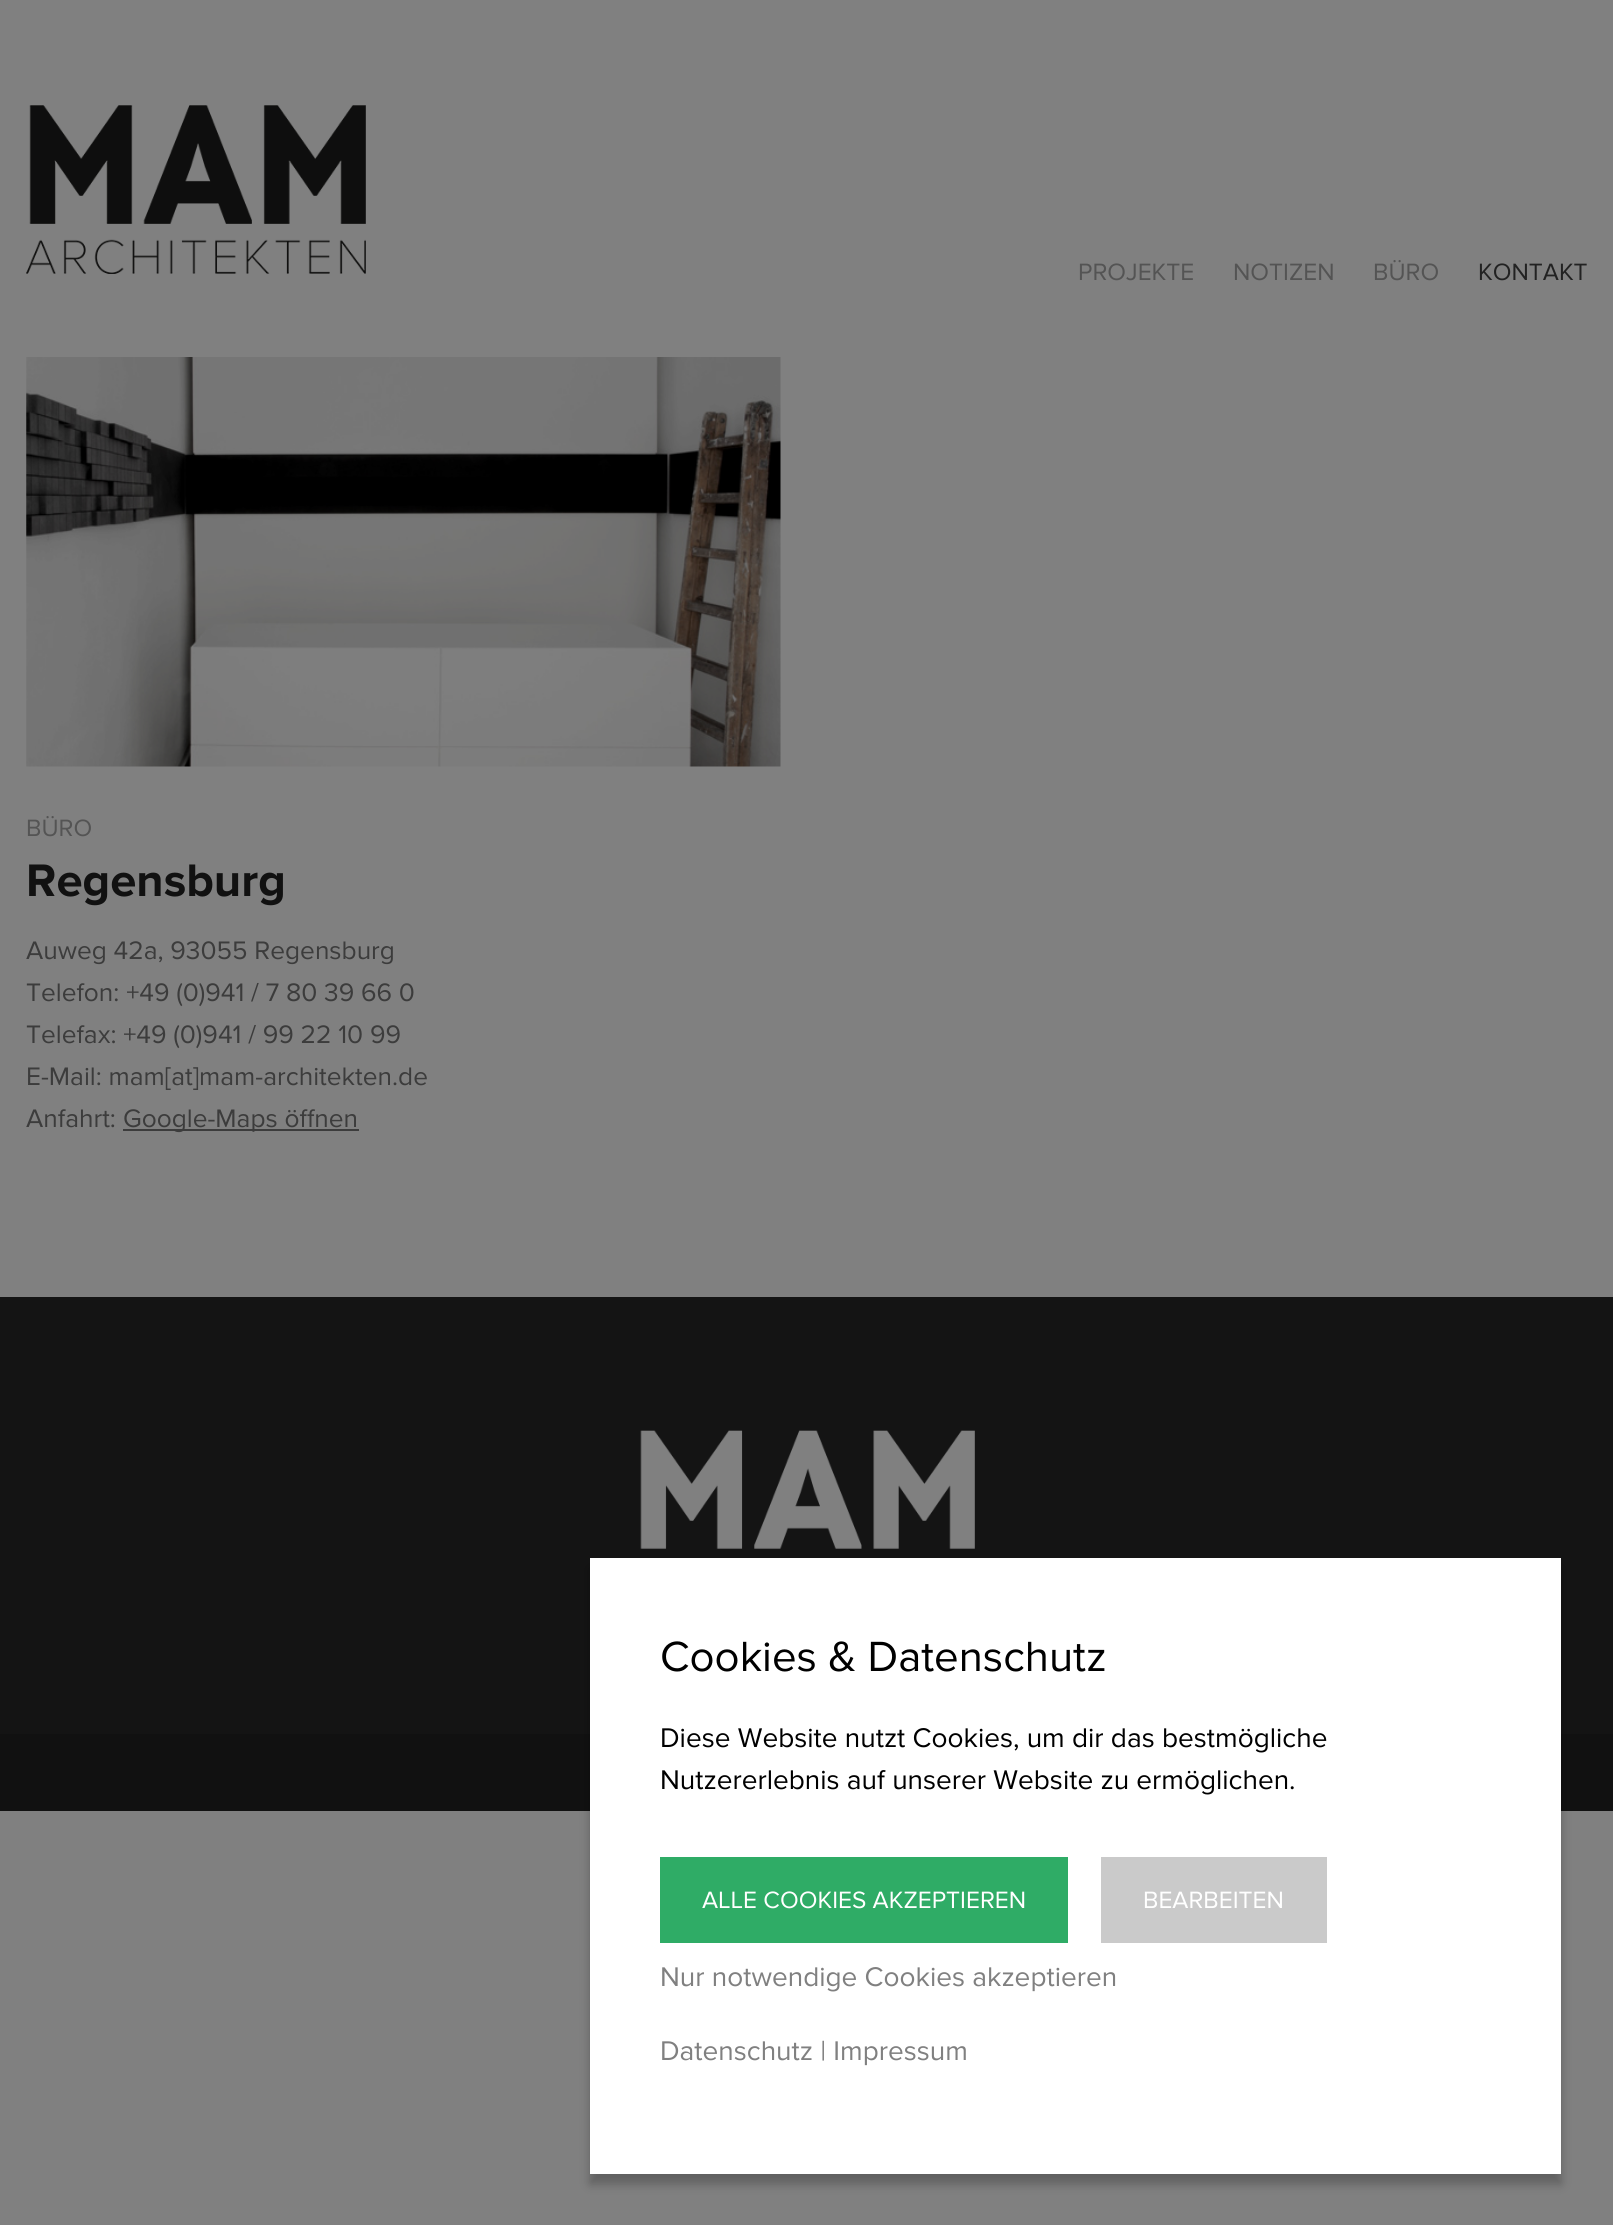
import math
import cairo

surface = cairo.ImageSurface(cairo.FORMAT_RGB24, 1613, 2225)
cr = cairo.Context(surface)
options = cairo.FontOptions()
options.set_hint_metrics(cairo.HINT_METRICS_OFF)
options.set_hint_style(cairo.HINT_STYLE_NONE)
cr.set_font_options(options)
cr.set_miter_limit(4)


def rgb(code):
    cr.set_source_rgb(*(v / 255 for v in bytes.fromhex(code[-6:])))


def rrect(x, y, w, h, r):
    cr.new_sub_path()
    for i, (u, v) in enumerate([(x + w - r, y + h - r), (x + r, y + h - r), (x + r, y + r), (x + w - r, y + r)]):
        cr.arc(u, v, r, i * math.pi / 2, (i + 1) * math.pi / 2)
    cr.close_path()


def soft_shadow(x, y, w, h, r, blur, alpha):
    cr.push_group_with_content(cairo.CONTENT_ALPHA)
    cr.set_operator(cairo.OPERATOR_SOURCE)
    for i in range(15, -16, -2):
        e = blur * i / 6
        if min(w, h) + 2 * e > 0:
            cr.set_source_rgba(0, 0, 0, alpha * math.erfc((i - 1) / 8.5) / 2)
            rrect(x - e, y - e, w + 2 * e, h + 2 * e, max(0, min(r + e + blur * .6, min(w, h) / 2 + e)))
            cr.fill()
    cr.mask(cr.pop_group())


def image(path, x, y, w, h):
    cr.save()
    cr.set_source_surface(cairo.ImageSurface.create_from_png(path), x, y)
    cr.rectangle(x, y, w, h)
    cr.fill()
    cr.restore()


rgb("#808080")
cr.paint()
image("img/1.png", 26, 105, 340, 169)
image("img/2.png", 26, 357, 755, 410)
rgb("#3c3c3c")
cr.rectangle(123, 1129, 236, 2)
cr.fill()
rgb("#141414")
cr.rectangle(0, 1297, 1613, 437)
cr.fill()
image("img/3.png", 640, 1430, 335, 119)
rgb("#111111")
cr.rectangle(0, 1734, 1613, 77)
cr.fill()
rgb("#000000")
soft_shadow(590, 1568, 971, 616, 0, 5, 0.25)
for x, y, w, h, color in [
    (590, 1558, 971, 616, "#ffffff"),
    (660, 1857, 408, 86, "#2fac66"),
    (1101, 1857, 226, 86, "#cacaca"),
]:
    rgb(color)
    cr.rectangle(x, y, w, h)
    cr.fill()
cr.select_font_face("Proxima Nova")
cr.set_font_size(24.5)
rgb("#545454")
for x, y, s in [
    (1078, 280, "PROJEKTE"),
    (1233, 280, "NOTIZEN"),
    (1373, 280, "BÜRO"),
]:
    cr.move_to(x, y)
    cr.show_text(s)
rgb("#222222")
cr.move_to(1478, 280)
cr.show_text("KONTAKT")
rgb("#545454")
cr.move_to(26, 836)
cr.show_text("BÜRO")
cr.select_font_face("Proxima Nova", cairo.FONT_SLANT_NORMAL, cairo.FONT_WEIGHT_BOLD)
cr.set_font_size(47.25)
rgb("#111111")
cr.move_to(26, 896)
cr.show_text("Regensburg")
cr.select_font_face("Proxima Nova")
cr.set_font_size(26.25)
rgb("#3c3c3c")
for x, y, s in [
    (26, 959, "Auweg 42a, 93055 Regensburg"),
    (26, 1001, "Telefon: +49 (0)941 / 7 80 39 66 0"),
    (26, 1043, "Telefax: +49 (0)941 / 99 22 10 99"),
    (26, 1085, "E-Mail: mam[at]mam-architekten.de"),
    (26, 1127, "Anfahrt:"),
    (123, 1127, "Google-Maps öffnen"),
]:
    cr.move_to(x, y)
    cr.show_text(s)
cr.set_font_size(43.75)
rgb("#000000")
cr.move_to(660, 1671)
cr.show_text("Cookies & Datenschutz")
cr.set_font_size(28)
cr.move_to(660, 1747)
cr.show_text("Diese Website nutzt Cookies, um dir das bestmögliche")
cr.move_to(660, 1789)
cr.show_text("Nutzererlebnis auf unserer Website zu ermöglichen.")
cr.set_font_size(24.5)
rgb("#ffffff")
cr.move_to(702, 1908)
cr.show_text("ALLE COOKIES AKZEPTIEREN")
cr.move_to(1143, 1908)
cr.show_text("BEARBEITEN")
cr.set_font_size(28)
rgb("#808080")
cr.move_to(660, 1986)
cr.show_text("Nur notwendige Cookies akzeptieren")
cr.move_to(660, 2060)
cr.show_text("Datenschutz | Impressum")
surface.write_to_png("page.png")
